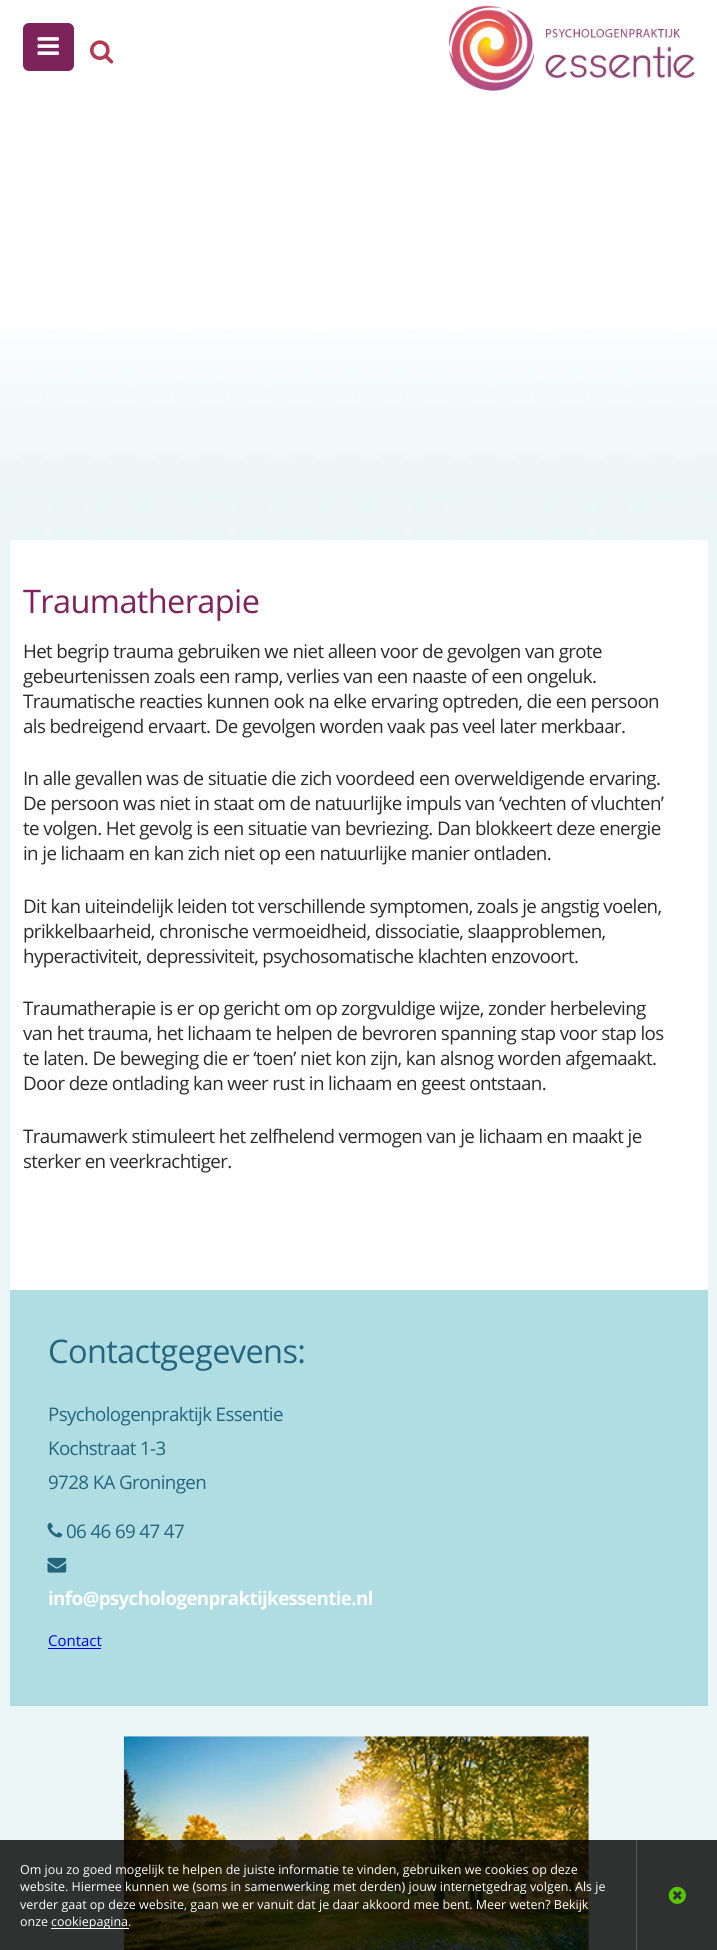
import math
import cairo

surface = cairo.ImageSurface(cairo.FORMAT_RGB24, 717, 1950)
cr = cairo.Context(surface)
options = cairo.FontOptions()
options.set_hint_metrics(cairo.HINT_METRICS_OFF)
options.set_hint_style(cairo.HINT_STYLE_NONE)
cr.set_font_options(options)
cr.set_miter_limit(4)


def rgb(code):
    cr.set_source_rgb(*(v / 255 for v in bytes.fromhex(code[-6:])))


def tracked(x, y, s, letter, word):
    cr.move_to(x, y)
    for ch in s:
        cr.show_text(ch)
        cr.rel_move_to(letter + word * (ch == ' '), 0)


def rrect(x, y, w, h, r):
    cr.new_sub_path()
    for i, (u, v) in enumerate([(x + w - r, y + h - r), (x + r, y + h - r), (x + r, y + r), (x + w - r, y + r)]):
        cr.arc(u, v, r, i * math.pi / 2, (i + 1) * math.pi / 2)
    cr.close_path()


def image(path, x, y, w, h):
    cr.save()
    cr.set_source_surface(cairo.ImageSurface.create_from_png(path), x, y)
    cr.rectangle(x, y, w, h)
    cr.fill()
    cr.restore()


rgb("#ffffff")
cr.paint()
image("img/1.png", 0, 330, 717, 1620)
rgb("#7e225c")
rrect(23, 23, 51, 48, 6)
cr.fill()
image("img/2.png", 37, 37, 22, 18)
image("img/3.png", 90, 40, 24, 24)
image("img/4.png", 449, 5, 246, 86)
rgb("#ffffff")
cr.rectangle(10, 540, 698, 750)
cr.fill()
rgb("#afdde1")
cr.rectangle(10, 1290, 698, 416)
cr.fill()
image("img/5.png", 47, 1522, 16, 16)
image("img/6.png", 47, 1557, 20, 16)
rgb("#0000ee")
cr.rectangle(48, 1648, 53, 1)
cr.fill()
image("img/7.png", 123, 1736, 466, 214)
cr.set_source_rgba(0, 0, 0, 0.8)
cr.rectangle(0, 1840, 717, 110)
cr.fill()
rgb("#ffffff")
cr.rectangle(51, 1928, 78, 1)
cr.fill()
rgb("#595a5b")
cr.rectangle(636, 1840, 1, 110)
cr.fill()
image("img/8.png", 668, 1886, 18, 18)
cr.select_font_face("Open Sans")
cr.set_font_size(32.5)
rgb("#7e225c")
tracked(23, 613, "Traumatherapie", -0.62, 0)
cr.set_font_size(18.75)
rgb("#2b2b2b")
for x, y, s in [
    (23, 658, "Het begrip trauma gebruiken we niet alleen voor de gevolgen van grote"),
    (23, 683, "gebeurtenissen zoals een ramp, verlies van een naaste of een ongeluk."),
    (23, 708, "Traumatische reacties kunnen ook na elke ervaring optreden, die een persoon"),
    (23, 733, "als bedreigend ervaart. De gevolgen worden vaak pas veel later merkbaar."),
    (23, 785, "In alle gevallen was de situatie die zich voordeed een overweldigende ervaring."),
    (23, 810, "De persoon was niet in staat om de natuurlijke impuls van ‘vechten of vluchten’"),
    (23, 835, "te volgen. Het gevolg is een situatie van bevriezing. Dan blokkeert deze energie"),
    (23, 860, "in je lichaam en kan zich niet op een natuurlijke manier ontladen."),
    (23, 913, "Dit kan uiteindelijk leiden tot verschillende symptomen, zoals je angstig voelen,"),
    (23, 938, "prikkelbaarheid, chronische vermoeidheid, dissociatie, slaapproblemen,"),
    (23, 963, "hyperactiviteit, depressiviteit, psychosomatische klachten enzovoort."),
    (23, 1015, "Traumatherapie is er op gericht om op zorgvuldige wijze, zonder herbeleving"),
    (23, 1040, "van het trauma, het lichaam te helpen de bevroren spanning stap voor stap los"),
    (23, 1065, "te laten. De beweging die er ‘toen’ niet kon zijn, kan alsnog worden afgemaakt."),
    (23, 1090, "Door deze ontlading kan weer rust in lichaam en geest ontstaan."),
    (23, 1143, "Traumawerk stimuleert het zelfhelend vermogen van je lichaam en maakt je"),
    (23, 1168, "sterker en veerkrachtiger."),
]:
    tracked(x, y, s, -0.62, 0)
cr.set_font_size(32.5)
rgb("#246680")
tracked(48, 1363, "Contactgegevens:", -0.62, 0)
cr.set_font_size(18.75)
for x, y, s in [
    (48, 1421, "Psychologenpraktijk Essentie"),
    (48, 1455, "Kochstraat 1-3"),
    (48, 1489, "9728 KA Groningen"),
    (66, 1538, "06 46 69 47 47"),
]:
    tracked(x, y, s, -0.62, 0)
cr.select_font_face("Open Sans", cairo.FONT_SLANT_NORMAL, cairo.FONT_WEIGHT_BOLD)
rgb("#ffffff")
tracked(48, 1605, "info@psychologenpraktijkessentie.nl", -0.62, 0)
cr.select_font_face("Open Sans")
cr.set_font_size(15)
rgb("#0000ee")
cr.move_to(48, 1646)
cr.show_text("Contact")
cr.set_font_size(12.5)
rgb("#ffffff")
for x, y, s in [
    (20, 1874, "Om jou zo goed mogelijk te helpen de juiste informatie te vinden, gebruiken we cookies op deze"),
    (20, 1891, "website. Hiermee kunnen we (soms in samenwerking met derden) jouw internetgedrag volgen. Als je"),
    (20, 1909, "verder gaat op deze website, gaan we er vanuit dat je daar akkoord mee bent. Meer weten? Bekijk"),
    (20, 1926, "onze"),
    (51, 1926, "cookiepagina."),
]:
    cr.move_to(x, y)
    cr.show_text(s)
surface.write_to_png("page.png")
